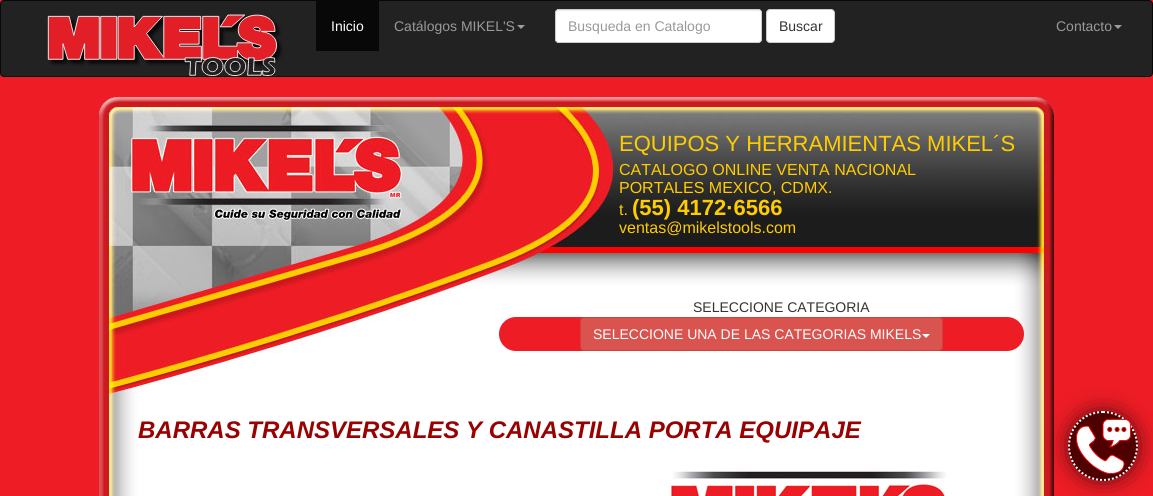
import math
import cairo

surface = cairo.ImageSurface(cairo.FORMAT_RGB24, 1153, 496)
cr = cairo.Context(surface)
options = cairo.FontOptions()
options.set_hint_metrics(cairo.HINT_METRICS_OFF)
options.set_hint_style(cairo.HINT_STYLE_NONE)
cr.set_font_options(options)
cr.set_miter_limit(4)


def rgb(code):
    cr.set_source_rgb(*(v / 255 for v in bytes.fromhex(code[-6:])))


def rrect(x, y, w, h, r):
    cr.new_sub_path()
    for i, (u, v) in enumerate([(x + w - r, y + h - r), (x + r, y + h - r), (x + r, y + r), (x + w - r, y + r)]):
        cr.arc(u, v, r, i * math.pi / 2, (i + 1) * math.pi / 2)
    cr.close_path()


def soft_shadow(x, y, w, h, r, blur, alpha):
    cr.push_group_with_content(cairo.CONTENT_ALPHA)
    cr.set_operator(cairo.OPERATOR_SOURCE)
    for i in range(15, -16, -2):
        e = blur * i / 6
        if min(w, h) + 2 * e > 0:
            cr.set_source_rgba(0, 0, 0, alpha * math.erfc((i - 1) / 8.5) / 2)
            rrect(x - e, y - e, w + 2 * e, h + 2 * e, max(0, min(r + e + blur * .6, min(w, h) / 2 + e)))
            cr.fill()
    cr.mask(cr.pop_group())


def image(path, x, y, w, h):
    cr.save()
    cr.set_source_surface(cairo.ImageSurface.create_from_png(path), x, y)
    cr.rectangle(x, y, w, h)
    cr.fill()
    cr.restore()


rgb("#ee1c25")
cr.paint()
rgb("#222222")
rrect(0.5, 0.5, 1152, 76, 3.5)
cr.fill_preserve()
rgb("#080808")
cr.set_line_width(1)
cr.stroke()
image("img/1.png", 47, 14, 236, 62)
cr.rectangle(316, 1, 63, 50)
cr.fill()
rgb("#9d9d9d")
cr.new_path()
cr.move_to(517, 25)
cr.line_to(525, 25)
cr.line_to(521, 29)
cr.close_path()
cr.fill()
rgb("#ffffff")
rrect(555, 9, 207, 34, 4)
cr.fill()
rgb("#ececec")
cr.new_path()
cr.move_to(559, 11)
cr.line_to(758, 11)
cr.curve_to(760, 11, 761, 12, 761, 14)
cr.curve_to(761, 12, 760, 10, 758, 10)
cr.line_to(559, 10)
cr.curve_to(557, 10, 556, 12, 556, 14)
cr.curve_to(556, 12, 557, 11, 559, 11)
cr.close_path()
cr.fill()
rrect(555.5, 9.5, 206, 33, 3.5)
rgb("#cccccc")
cr.stroke()
rgb("#ffffff")
rrect(766.5, 9.5, 68, 33, 3.5)
cr.fill_preserve()
rgb("#cccccc")
cr.stroke()
rgb("#9d9d9d")
cr.new_path()
cr.move_to(1114, 25)
cr.line_to(1122, 25)
cr.line_to(1118, 29)
cr.close_path()
cr.fill()
image("img/2.png", 99, 97, 955, 300)
rgb("#ee1c25")
rrect(499, 317, 525, 34, 17)
cr.fill()
rgb("#d9534f")
rrect(580.5, 317.5, 362, 33, 3.5)
cr.fill_preserve()
rgb("#d43f3a")
cr.stroke()
rgb("#ffffff")
cr.new_path()
cr.move_to(922, 334)
cr.line_to(930, 334)
cr.line_to(926, 338)
cr.close_path()
cr.fill()
image("img/3.png", 99, 397, 955, 99)
image("img/4.png", 671, 471, 275, 25)
rgb("#000000")
soft_shadow(1074, 417, 58, 58, 29, 12.5, 1)
rgb("#4f0001")
cr.arc(1103, 446, 35, 0, 2 * math.pi)
cr.fill()
cr.new_path()
cr.move_to(1103, 412)
cr.curve_to(1122, 412, 1137, 427, 1137, 446)
cr.curve_to(1137, 465, 1122, 480, 1103, 480)
cr.curve_to(1084, 480, 1069, 465, 1069, 446)
cr.curve_to(1069, 427, 1084, 412, 1103, 412)
cr.close_path()
rgb("#ffffff")
cr.set_line_width(2)
cr.set_dash([2, 2])
cr.stroke()
image("img/5.png", 1076, 419, 55, 55)
cr.select_font_face("Liberation Sans")
cr.set_font_size(14)
cr.move_to(331, 31)
cr.show_text("Inicio")
rgb("#999999")
cr.move_to(394, 31)
cr.show_text("Catálogos MIKEL'S")
cr.move_to(568, 31)
cr.show_text("Busqueda en Catalogo")
rgb("#333333")
cr.move_to(779, 31)
cr.show_text("Buscar")
rgb("#999999")
cr.move_to(1056, 31)
cr.show_text("Contacto")
cr.set_font_size(22)
rgb("#ffcc00")
cr.move_to(619, 151)
cr.show_text("EQUIPOS Y HERRAMIENTAS MIKEL´S")
cr.set_font_size(16)
for x, y, s in [
    (619, 175, "CATALOGO ONLINE VENTA NACIONAL"),
    (619, 193, "PORTALES MEXICO, CDMX."),
    (619, 215, "t."),
]:
    cr.move_to(x, y)
    cr.show_text(s)
cr.select_font_face("Liberation Sans", cairo.FONT_SLANT_NORMAL, cairo.FONT_WEIGHT_BOLD)
cr.set_font_size(22)
cr.move_to(632, 215)
cr.show_text("(55) 4172·6566")
cr.select_font_face("Liberation Sans")
cr.set_font_size(16)
cr.move_to(619, 233)
cr.show_text("ventas@mikelstools.com")
cr.set_font_size(14)
rgb("#333333")
cr.move_to(693, 312)
cr.show_text("SELECCIONE CATEGORIA")
rgb("#ffffff")
cr.move_to(593, 339)
cr.show_text("SELECCIONE UNA DE LAS CATEGORIAS MIKELS")
cr.select_font_face("Liberation Sans", cairo.FONT_SLANT_ITALIC, cairo.FONT_WEIGHT_BOLD)
cr.set_font_size(24)
rgb("#990000")
cr.move_to(138, 438)
cr.show_text("BARRAS TRANSVERSALES Y CANASTILLA PORTA EQUIPAJE")
surface.write_to_png("page.png")
